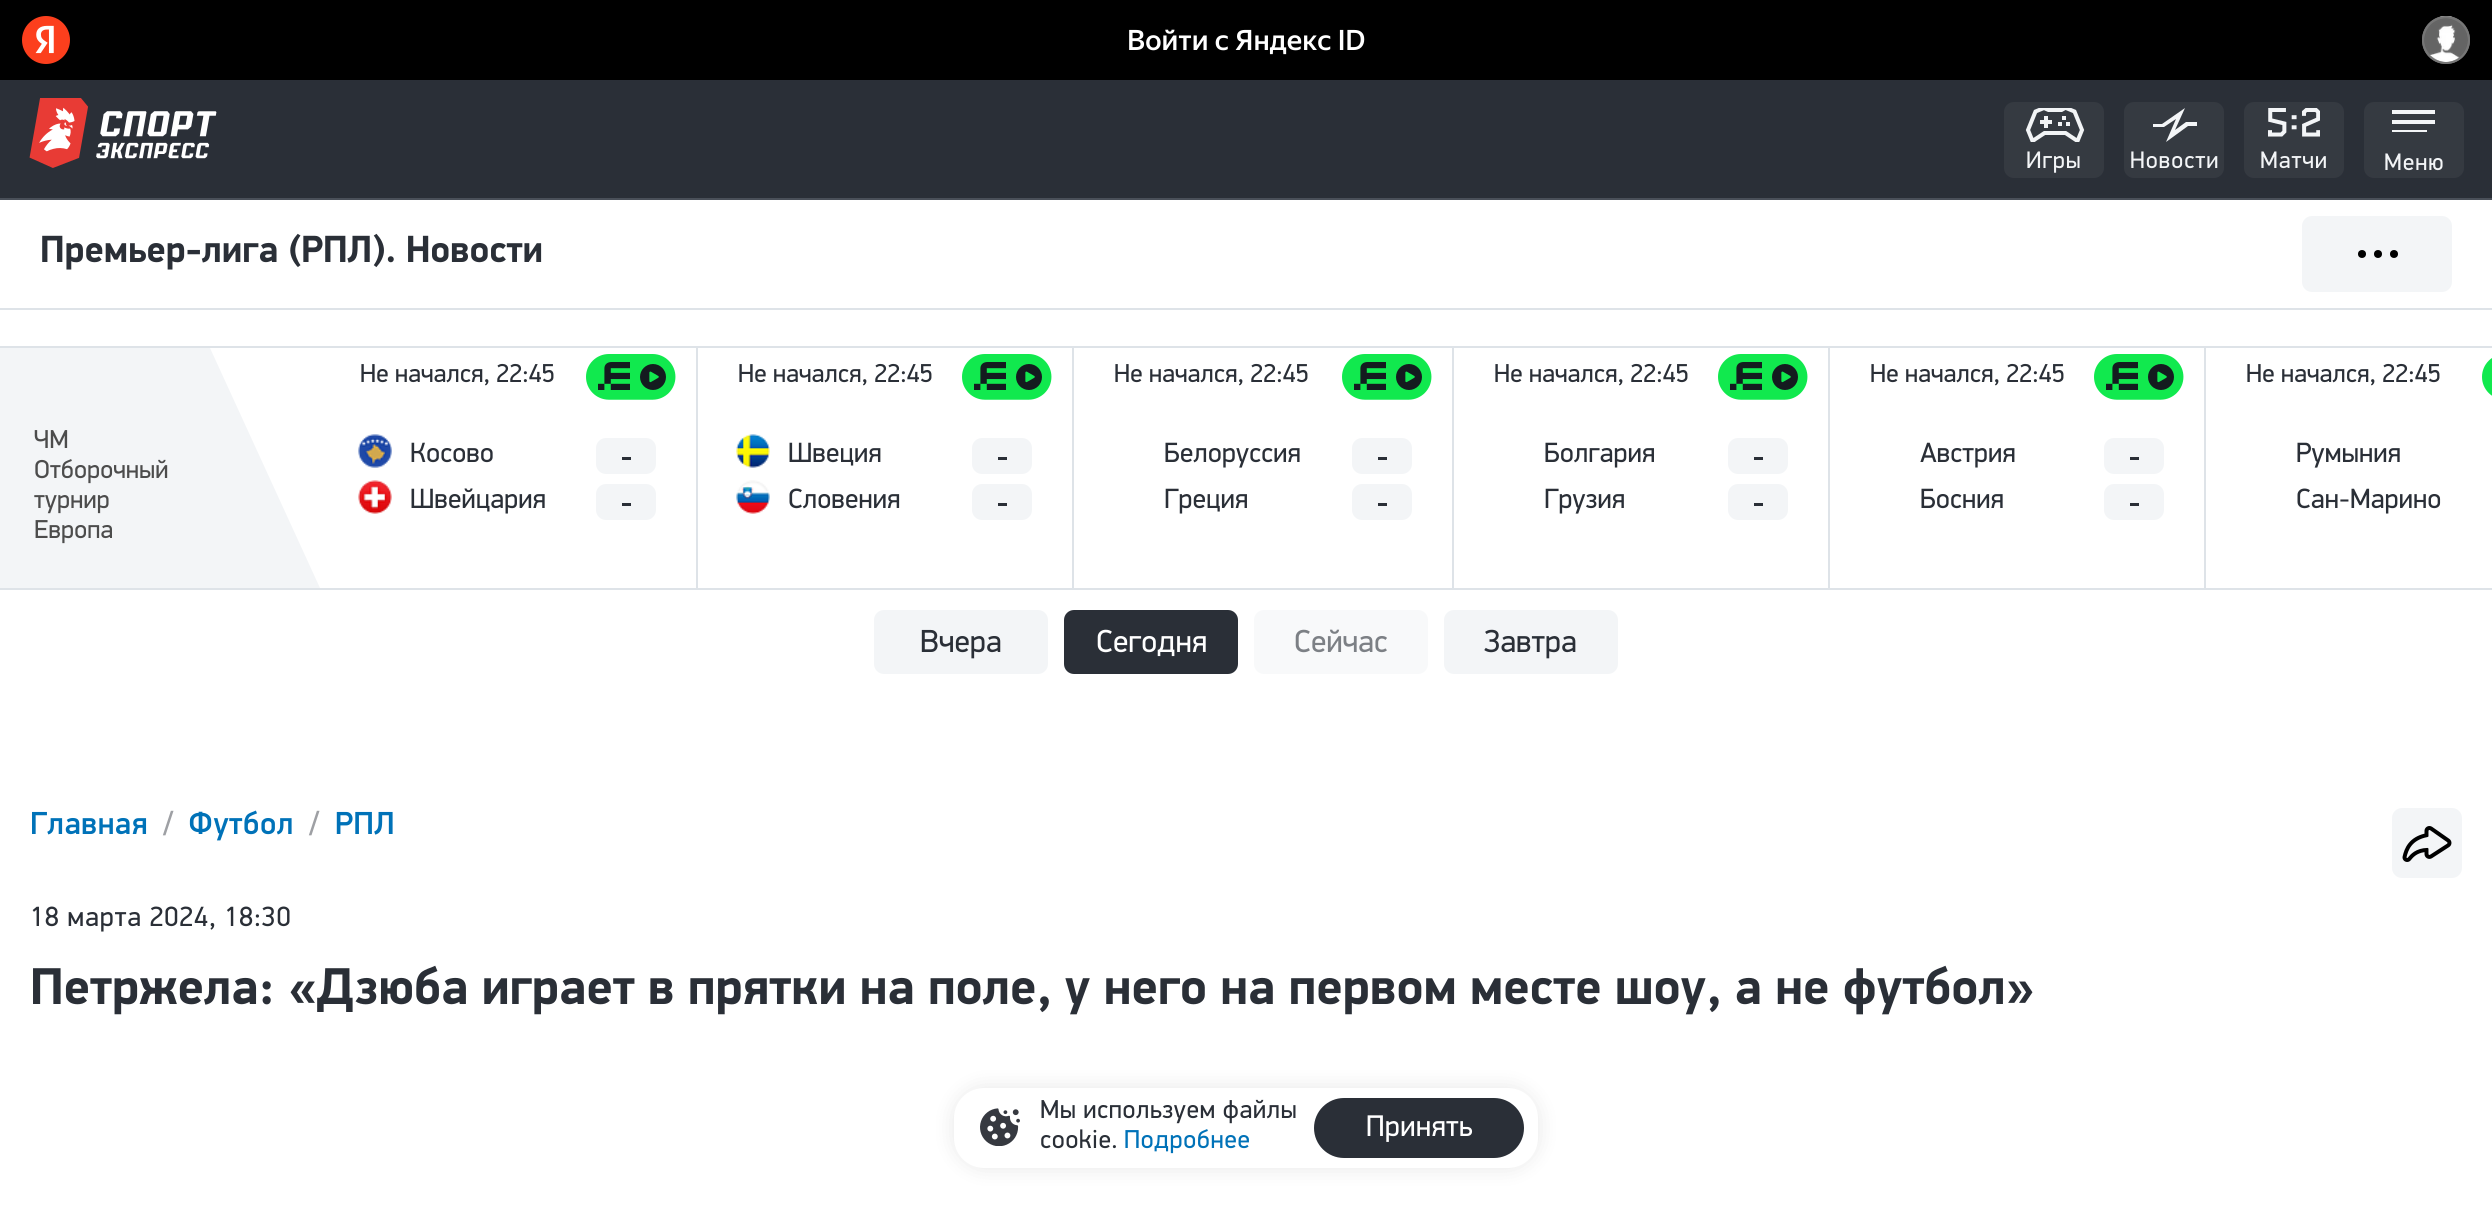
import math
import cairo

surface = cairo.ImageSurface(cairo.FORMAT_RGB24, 2492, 1208)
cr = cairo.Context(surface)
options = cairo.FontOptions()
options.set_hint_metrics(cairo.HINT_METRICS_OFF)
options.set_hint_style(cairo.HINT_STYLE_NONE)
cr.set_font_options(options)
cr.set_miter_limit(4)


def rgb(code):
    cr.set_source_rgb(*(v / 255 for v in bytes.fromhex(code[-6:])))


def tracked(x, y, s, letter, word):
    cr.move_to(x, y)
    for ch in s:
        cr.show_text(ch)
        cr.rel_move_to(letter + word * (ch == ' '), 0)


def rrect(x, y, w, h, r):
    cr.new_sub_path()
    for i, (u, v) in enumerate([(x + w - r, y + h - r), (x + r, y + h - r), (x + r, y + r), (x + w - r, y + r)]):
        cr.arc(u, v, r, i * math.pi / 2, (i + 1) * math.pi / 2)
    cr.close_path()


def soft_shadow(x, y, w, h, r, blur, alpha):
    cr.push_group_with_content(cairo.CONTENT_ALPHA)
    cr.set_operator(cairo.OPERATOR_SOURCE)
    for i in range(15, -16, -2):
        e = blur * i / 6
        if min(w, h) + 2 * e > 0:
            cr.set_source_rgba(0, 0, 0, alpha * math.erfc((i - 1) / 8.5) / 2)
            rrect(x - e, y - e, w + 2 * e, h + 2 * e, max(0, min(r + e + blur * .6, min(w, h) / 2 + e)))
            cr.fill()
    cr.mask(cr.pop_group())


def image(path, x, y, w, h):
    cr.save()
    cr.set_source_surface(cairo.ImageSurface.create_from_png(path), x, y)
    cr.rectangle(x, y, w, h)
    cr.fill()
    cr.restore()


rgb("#ffffff")
cr.paint()
rgb("#000000")
cr.rectangle(0, 0, 2492, 80)
cr.fill()
image("img/1.png", 22, 16, 48, 48)
rgb("#767676")
cr.arc(2446, 40, 24, 0, 2 * math.pi)
cr.fill()
image("img/2.png", 2422, 16, 48, 48)
cr.arc(2446, 40, 23, 0, 2 * math.pi)
cr.stroke()
rgb("#2a2f37")
cr.rectangle(0, 80, 2492, 118)
cr.fill()
rgb("#4a5059")
cr.rectangle(0, 198, 2492, 2)
cr.fill()
image("img/3.png", 29, 98, 188, 70)
rgb("#353a41")
rrect(2004, 102, 100, 76, 10)
cr.fill()
cr.save()
cr.rectangle(2024, 108, 62, 34)
cr.clip()
cr.new_path()
cr.move_to(2065, 108)
cr.line_to(2061.5, 110)
cr.line_to(2048.5, 110)
cr.line_to(2044, 108)
cr.line_to(2035.5, 111.5)
cr.line_to(2028, 130)
cr.line_to(2032.5, 141)
cr.line_to(2044.5, 133)
cr.line_to(2065.5, 133)
cr.line_to(2077.5, 141)
cr.line_to(2082, 130)
cr.line_to(2074.5, 111.5)
cr.line_to(2066, 108)
cr.close_path()
rgb("#f2f4f6")
cr.set_line_width(4)
cr.stroke()
cr.restore()
for x, y, w, h, color in [
    (2062, 116, 4, 4, "#f2f4f6"),
    (2058, 122, 4, 4, "#f2f4f6"),
    (2066, 122, 4, 4, "#f2f4f6"),
    (2044, 116, 4, 12, "#f2f4f6"),
    (2040, 120, 12, 4, "#f2f4f6"),
]:
    rgb(color)
    cr.rectangle(x, y, w, h)
    cr.fill()
image("img/4.png", 2027, 151, 53, 22)
rgb("#353a41")
rrect(2124, 102, 100, 76, 10)
cr.fill()
rgb("#f3f5f7")
cr.new_path()
cr.move_to(2166, 142)
cr.line_to(2176, 119)
cr.line_to(2164, 127)
cr.line_to(2153, 127)
cr.line_to(2153, 124)
cr.line_to(2162, 124)
cr.line_to(2185, 108)
cr.line_to(2175, 130)
cr.line_to(2186, 122)
cr.line_to(2197, 122)
cr.line_to(2197, 126)
cr.line_to(2188, 126)
cr.close_path()
cr.fill()
image("img/5.png", 2131, 151, 87, 18)
rgb("#353a41")
rrect(2244, 102, 100, 76, 10)
cr.fill()
image("img/6.png", 2268, 108, 52, 29)
image("img/7.png", 2261, 151, 65, 18)
rrect(2364, 102, 100, 76, 10)
cr.fill()
for x, y, w, h, color in [
    (2392, 110, 43, 4, "#f3f5f7"),
    (2392, 120, 43, 4, "#f3f5f7"),
    (2392, 130, 35, 2, "#f3f5f7"),
]:
    rgb(color)
    cr.rectangle(x, y, w, h)
    cr.fill()
image("img/8.png", 2385, 153, 58, 18)
rgb("#dee3e8")
cr.rectangle(0, 308, 2492, 2)
cr.fill()
image("img/9.png", 42, 233, 500, 37)
rgb("#f3f5f7")
rrect(2302, 216, 150, 76, 10)
cr.fill()
rgb("#000000")
cr.arc(2362, 254, 4, 0, 2 * math.pi)
cr.fill()
cr.arc(2378, 254, 4, 0, 2 * math.pi)
cr.fill()
cr.arc(2394, 254, 4, 0, 2 * math.pi)
cr.fill()
for x, y, w, h, color in [
    (0, 346, 2492, 2, "#dee3e8"),
    (0, 588, 2492, 2, "#dee3e8"),
    (0, 348, 320, 240, "#f3f5f7"),
]:
    rgb(color)
    cr.rectangle(x, y, w, h)
    cr.fill()
image("img/10.png", 34, 430, 34, 18)
image("img/11.png", 35, 459, 133, 25)
image("img/12.png", 34, 495, 75, 19)
image("img/13.png", 35, 520, 77, 24)
rgb("#ffffff")
cr.new_path()
cr.move_to(210, 348)
cr.line_to(320, 348)
cr.line_to(320, 588)
cr.close_path()
cr.fill()
rgb("#dee3e8")
cr.rectangle(696, 348, 2, 240)
cr.fill()
image("img/14.png", 361, 363, 193, 23)
image("img/15.png", 586, 354, 90, 46)
image("img/16.png", 358, 434, 34, 34)
image("img/17.png", 411, 442, 82, 21)
image("img/18.png", 358, 480, 34, 34)
image("img/19.png", 411, 488, 134, 26)
rgb("#f3f5f7")
rrect(596, 438, 60, 36, 10)
cr.fill()
rgb("#2a2f37")
cr.rectangle(622, 457, 9, 3)
cr.fill()
rgb("#f3f5f7")
rrect(596, 484, 60, 36, 10)
cr.fill()
rgb("#2a2f37")
cr.rectangle(622, 503, 9, 3)
cr.fill()
rgb("#dee3e8")
cr.rectangle(1072, 348, 2, 240)
cr.fill()
image("img/14.png", 739, 363, 193, 23)
image("img/15.png", 962, 354, 90, 46)
image("img/20.png", 736, 434, 34, 34)
image("img/21.png", 789, 442, 92, 24)
image("img/22.png", 736, 480, 34, 34)
image("img/23.png", 789, 488, 111, 21)
rgb("#f3f5f7")
rrect(972, 438, 60, 36, 10)
cr.fill()
rgb("#2a2f37")
cr.rectangle(998, 457, 9, 3)
cr.fill()
rgb("#f3f5f7")
rrect(972, 484, 60, 36, 10)
cr.fill()
rgb("#2a2f37")
cr.rectangle(998, 503, 9, 3)
cr.fill()
rgb("#dee3e8")
cr.rectangle(1452, 348, 2, 240)
cr.fill()
image("img/14.png", 1115, 363, 193, 23)
image("img/15.png", 1342, 354, 90, 46)
image("img/24.png", 1165, 442, 135, 26)
image("img/25.png", 1165, 488, 82, 26)
rgb("#f3f5f7")
rrect(1352, 438, 60, 36, 10)
cr.fill()
rgb("#2a2f37")
cr.rectangle(1378, 457, 9, 3)
cr.fill()
rgb("#f3f5f7")
rrect(1352, 484, 60, 36, 10)
cr.fill()
rgb("#2a2f37")
cr.rectangle(1378, 503, 9, 3)
cr.fill()
rgb("#dee3e8")
cr.rectangle(1828, 348, 2, 240)
cr.fill()
image("img/14.png", 1495, 363, 193, 23)
image("img/15.png", 1718, 354, 90, 46)
image("img/26.png", 1545, 442, 109, 26)
image("img/27.png", 1545, 488, 79, 26)
rgb("#f3f5f7")
rrect(1728, 438, 60, 36, 10)
cr.fill()
rgb("#2a2f37")
cr.rectangle(1754, 457, 9, 3)
cr.fill()
rgb("#f3f5f7")
rrect(1728, 484, 60, 36, 10)
cr.fill()
rgb("#2a2f37")
cr.rectangle(1754, 503, 9, 3)
cr.fill()
rgb("#dee3e8")
cr.rectangle(2204, 348, 2, 240)
cr.fill()
image("img/14.png", 1871, 363, 193, 23)
image("img/15.png", 2094, 354, 90, 46)
image("img/28.png", 1920, 442, 95, 26)
image("img/29.png", 1921, 488, 82, 21)
rgb("#f3f5f7")
rrect(2104, 438, 60, 36, 10)
cr.fill()
rgb("#2a2f37")
cr.rectangle(2130, 457, 9, 3)
cr.fill()
rgb("#f3f5f7")
rrect(2104, 484, 60, 36, 10)
cr.fill()
rgb("#2a2f37")
cr.rectangle(2130, 503, 9, 3)
cr.fill()
image("img/14.png", 2247, 363, 193, 23)
image("img/30.png", 2482, 358, 10, 38)
image("img/31.png", 2297, 442, 103, 26)
image("img/32.png", 2297, 488, 144, 26)
rgb("#f3f5f7")
rrect(874, 610, 174, 64, 10)
cr.fill()
image("img/33.png", 921, 629, 80, 30)
rgb("#2a2f37")
rrect(1065, 611, 172, 62, 9)
cr.fill_preserve()
cr.stroke()
image("img/34.png", 1097, 629, 109, 28)
rgb("#f8f9fa")
rrect(1254, 610, 174, 64, 10)
cr.fill()
image("img/35.png", 1295, 629, 92, 24)
rgb("#f3f5f7")
rrect(1444, 610, 174, 64, 10)
cr.fill()
image("img/36.png", 1484, 629, 92, 30)
rrect(2392, 808, 70, 70, 10)
cr.fill()
image("img/37.png", 2402, 826, 50, 36)
image("img/38.png", 32, 906, 258, 26)
image("img/39.png", 33, 965, 2000, 50)
rgb("#000000")
soft_shadow(954, 1088, 584, 80, 30, 10, 0.1)
rgb("#ffffff")
rrect(954, 1088, 584, 80, 30)
cr.fill()
image("img/40.png", 980, 1108, 40, 38)
image("img/41.png", 1041, 1099, 255, 25)
image("img/42.png", 1041, 1129, 75, 20)
image("img/43.png", 1125, 1129, 124, 25)
rgb("#2a2f37")
rrect(1314, 1098, 210, 60, 30)
cr.fill()
image("img/44.png", 1367, 1115, 106, 27)
cr.select_font_face("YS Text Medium")
cr.set_font_size(28)
rgb("#ffffff")
cr.move_to(1127, 50)
cr.show_text("Войти с Яндекс ID")
cr.select_font_face("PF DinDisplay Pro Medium")
cr.set_font_size(32)
rgb("#0072b8")
tracked(30, 834, "Главная", 0.5, 0)
rgb("#9ea0a4")
tracked(163, 834, "/", 0.5, 0)
rgb("#0072b8")
tracked(188, 834, "Футбол", 0.5, 0)
rgb("#9ea0a4")
tracked(309, 834, "/", 0.5, 0)
rgb("#0072b8")
tracked(335, 834, "РПЛ", 0.5, 0)
surface.write_to_png("page.png")
